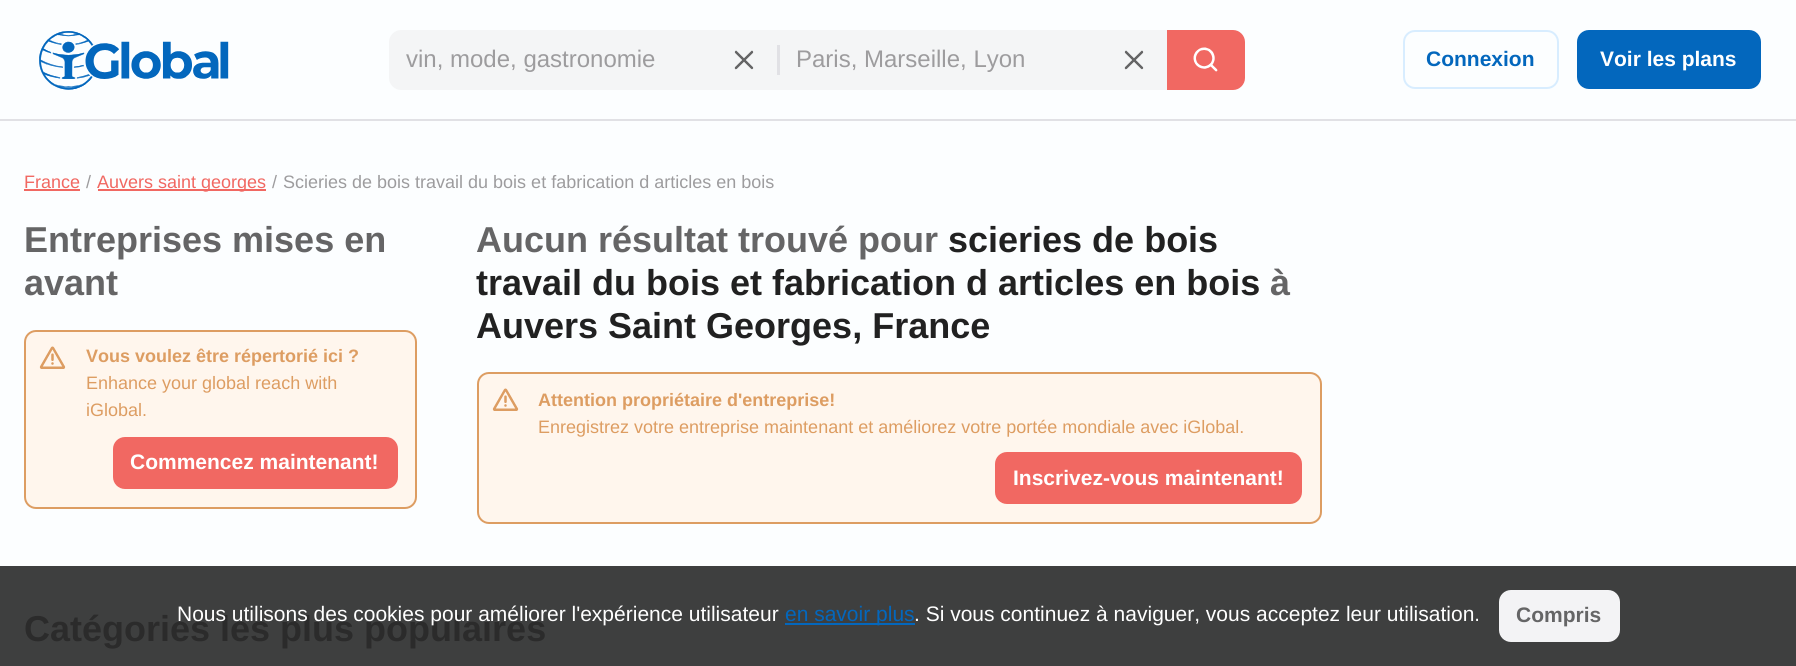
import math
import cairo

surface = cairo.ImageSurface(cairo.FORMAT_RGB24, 1796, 666)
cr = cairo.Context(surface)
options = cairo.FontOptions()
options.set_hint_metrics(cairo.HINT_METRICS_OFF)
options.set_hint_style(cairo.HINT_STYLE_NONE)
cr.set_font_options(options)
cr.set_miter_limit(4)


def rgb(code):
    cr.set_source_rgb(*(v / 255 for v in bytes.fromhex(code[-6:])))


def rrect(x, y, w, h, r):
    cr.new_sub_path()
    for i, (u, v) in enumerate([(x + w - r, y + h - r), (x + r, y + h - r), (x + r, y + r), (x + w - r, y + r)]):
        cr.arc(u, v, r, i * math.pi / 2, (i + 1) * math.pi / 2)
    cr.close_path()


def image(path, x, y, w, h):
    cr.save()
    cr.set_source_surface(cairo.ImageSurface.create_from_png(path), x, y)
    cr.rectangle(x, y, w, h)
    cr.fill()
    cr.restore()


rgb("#fcfeff")
cr.paint()
rgb("#3e3f3f")
cr.rectangle(0, 566, 1796, 100)
cr.fill()
rgb("#e1e1e5")
cr.rectangle(0, 119, 1796, 2)
cr.fill()
image("img/1.png", 39, 31, 190, 59)
rgb("#f4f5f6")
cr.new_path()
cr.move_to(401, 30)
cr.line_to(777, 30)
cr.line_to(777, 90)
cr.line_to(401, 90)
cr.curve_to(394.5, 90, 389, 84.5, 389, 78)
cr.line_to(389, 42)
cr.curve_to(389, 35.5, 394.5, 30, 401, 30)
cr.close_path()
cr.fill()
image("img/2.png", 734, 50, 20, 20)
cr.rectangle(777, 30, 390, 60)
cr.fill()
rgb("#e1e1e5")
cr.rectangle(777, 45, 3, 30)
cr.fill()
image("img/2.png", 1124, 50, 20, 20)
rgb("#f16862")
cr.new_path()
cr.move_to(1167, 30)
cr.line_to(1233, 30)
cr.curve_to(1239.5, 30, 1245, 35.5, 1245, 42)
cr.line_to(1245, 78)
cr.curve_to(1245, 84.5, 1239.5, 90, 1233, 90)
cr.line_to(1167, 90)
cr.close_path()
cr.fill()
image("img/3.png", 1193, 47, 25, 25)
rrect(1404, 31, 154, 57, 11)
rgb("#d8edff")
cr.stroke()
rgb("#0367bd")
rrect(1577, 30, 184, 59, 12)
cr.fill()
rgb("#f16862")
cr.rectangle(24, 189, 56, 2)
cr.fill()
cr.rectangle(98, 189, 168, 2)
cr.fill()
rgb("#fff6ed")
rrect(25, 331, 391, 177, 11)
cr.fill_preserve()
rgb("#dd9d62")
cr.stroke()
image("img/4.png", 39, 346, 27, 23)
rgb("#f16862")
rrect(113, 437, 285, 52, 12)
cr.fill()
rgb("#fff6ed")
rrect(478, 373, 843, 150, 11)
cr.fill_preserve()
rgb("#dd9d62")
cr.stroke()
image("img/5.png", 492, 388, 27, 23)
rgb("#f16862")
rrect(995, 452, 307, 52, 12)
cr.fill()
rgb("#0367bd")
cr.rectangle(785, 623, 130, 2)
cr.fill()
rgb("#f3f3f5")
rrect(1499, 590, 121, 52, 12)
cr.fill()
cr.select_font_face("Liberation Sans")
cr.set_font_size(24)
rgb("#9d9c9e")
cr.move_to(406, 67)
cr.show_text("vin, mode, gastronomie")
cr.move_to(796, 67)
cr.show_text("Paris, Marseille, Lyon")
cr.select_font_face("Liberation Sans", cairo.FONT_SLANT_NORMAL, cairo.FONT_WEIGHT_BOLD)
cr.set_font_size(21)
rgb("#0367bd")
cr.move_to(1426, 66)
cr.show_text("Connexion")
rgb("#ffffff")
cr.move_to(1600, 66)
cr.show_text("Voir les plans")
cr.select_font_face("Liberation Sans")
cr.set_font_size(18)
rgb("#f16862")
cr.move_to(24, 188)
cr.show_text("France")
rgb("#9d9c9e")
cr.move_to(86, 188)
cr.show_text("/")
rgb("#f16862")
cr.move_to(97, 188)
cr.show_text("Auvers saint georges")
rgb("#9d9c9e")
cr.move_to(272, 188)
cr.show_text("/")
cr.move_to(283, 188)
cr.show_text("Scieries de bois travail du bois et fabrication d articles en bois")
cr.select_font_face("Liberation Sans", cairo.FONT_SLANT_NORMAL, cairo.FONT_WEIGHT_BOLD)
cr.set_font_size(36)
rgb("#656566")
cr.move_to(24, 252)
cr.show_text("Entreprises mises en")
cr.move_to(24, 295)
cr.show_text("avant")
cr.set_font_size(18)
rgb("#dd9d62")
cr.move_to(86, 362)
cr.show_text("Vous voulez être répertorié ici ?")
cr.select_font_face("Liberation Sans")
cr.move_to(86, 389)
cr.show_text("Enhance your global reach with")
cr.move_to(86, 416)
cr.show_text("iGlobal.")
cr.select_font_face("Liberation Sans", cairo.FONT_SLANT_NORMAL, cairo.FONT_WEIGHT_BOLD)
cr.set_font_size(21)
rgb("#ffffff")
cr.move_to(130, 469)
cr.show_text("Commencez maintenant!")
cr.set_font_size(36)
rgb("#656566")
cr.move_to(476, 252)
cr.show_text("Aucun résultat trouvé pour")
rgb("#212121")
cr.move_to(948, 252)
cr.show_text("scieries de bois")
cr.move_to(476, 295)
cr.show_text("travail du bois et fabrication d articles en bois")
rgb("#656566")
cr.move_to(1270, 295)
cr.show_text("à")
rgb("#212121")
cr.move_to(476, 338)
cr.show_text("Auvers Saint Georges, France")
cr.set_font_size(18)
rgb("#dd9d62")
cr.move_to(538, 406)
cr.show_text("Attention propriétaire d'entreprise!")
cr.select_font_face("Liberation Sans")
cr.move_to(538, 433)
cr.show_text("Enregistrez votre entreprise maintenant et améliorez votre portée mondiale avec iGlobal.")
cr.select_font_face("Liberation Sans", cairo.FONT_SLANT_NORMAL, cairo.FONT_WEIGHT_BOLD)
cr.set_font_size(21)
rgb("#ffffff")
cr.move_to(1013, 485)
cr.show_text("Inscrivez-vous maintenant!")
cr.set_font_size(36)
rgb("#2b2b2b")
cr.move_to(24, 641)
cr.show_text("Catégories les plus populaires")
cr.select_font_face("Liberation Sans")
cr.set_font_size(21)
rgb("#ffffff")
cr.move_to(177, 621)
cr.show_text("Nous utilisons des cookies pour améliorer l'expérience utilisateur")
rgb("#0367bd")
cr.move_to(785, 621)
cr.show_text("en savoir plus")
rgb("#ffffff")
cr.move_to(914, 621)
cr.show_text(". Si vous continuez à naviguer, vous acceptez leur utilisation.")
cr.select_font_face("Liberation Sans", cairo.FONT_SLANT_NORMAL, cairo.FONT_WEIGHT_BOLD)
rgb("#656566")
cr.move_to(1516, 622)
cr.show_text("Compris")
surface.write_to_png("page.png")
